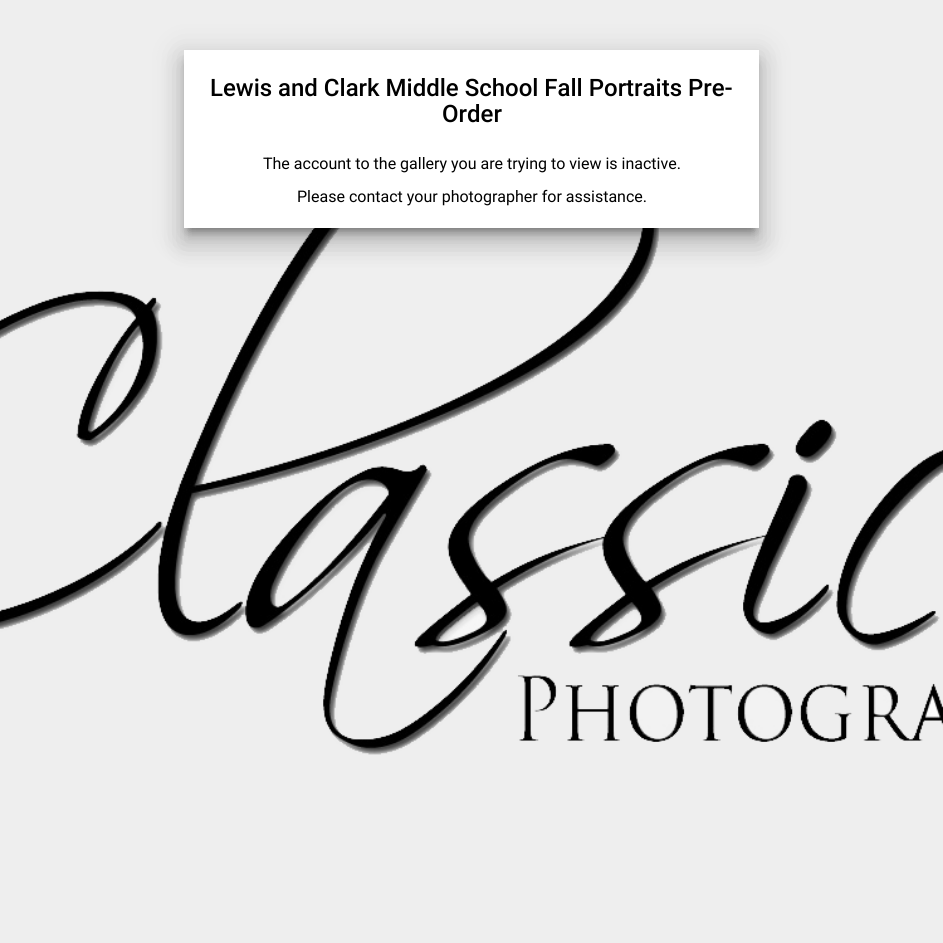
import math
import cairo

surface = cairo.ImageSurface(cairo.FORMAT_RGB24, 943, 943)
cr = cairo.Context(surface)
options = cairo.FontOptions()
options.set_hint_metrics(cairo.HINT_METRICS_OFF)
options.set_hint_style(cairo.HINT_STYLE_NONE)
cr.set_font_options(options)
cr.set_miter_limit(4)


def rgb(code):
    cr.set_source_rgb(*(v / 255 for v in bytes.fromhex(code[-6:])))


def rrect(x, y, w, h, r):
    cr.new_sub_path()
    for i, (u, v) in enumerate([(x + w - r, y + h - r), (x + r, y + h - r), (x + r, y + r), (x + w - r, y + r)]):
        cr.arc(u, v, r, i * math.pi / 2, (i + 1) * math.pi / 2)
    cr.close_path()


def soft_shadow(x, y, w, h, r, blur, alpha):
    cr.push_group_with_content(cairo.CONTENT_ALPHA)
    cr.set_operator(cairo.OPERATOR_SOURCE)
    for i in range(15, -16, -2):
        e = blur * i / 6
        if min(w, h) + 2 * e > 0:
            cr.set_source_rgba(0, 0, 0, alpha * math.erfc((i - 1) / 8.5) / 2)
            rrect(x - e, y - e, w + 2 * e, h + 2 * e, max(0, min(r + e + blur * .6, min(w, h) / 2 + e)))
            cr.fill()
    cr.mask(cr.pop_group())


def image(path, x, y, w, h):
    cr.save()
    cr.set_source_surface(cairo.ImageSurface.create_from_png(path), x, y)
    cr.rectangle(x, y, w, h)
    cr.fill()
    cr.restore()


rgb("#eeeeee")
cr.paint()
image("img/1.png", 0, 228, 943, 527)
rgb("#000000")
soft_shadow(189, 63, 565, 168, 0, 5, 0.4)
soft_shadow(179, 51, 585, 188, 0, 15, 0.12)
soft_shadow(182, 64, 579, 182, 0, 12, 0.14)
rgb("#ffffff")
cr.rectangle(184, 50, 575, 178)
cr.fill()
cr.select_font_face("Roboto Medium")
cr.set_font_size(24)
rgb("#000000")
cr.move_to(210, 96)
cr.show_text("Lewis and Clark Middle School Fall Portraits Pre-")
cr.move_to(442, 122)
cr.show_text("Order")
cr.select_font_face("Roboto")
cr.set_font_size(16)
cr.move_to(263, 169)
cr.show_text("The account to the gallery you are trying to view is inactive.")
cr.move_to(297, 202)
cr.show_text("Please contact your photographer for assistance.")
surface.write_to_png("page.png")
